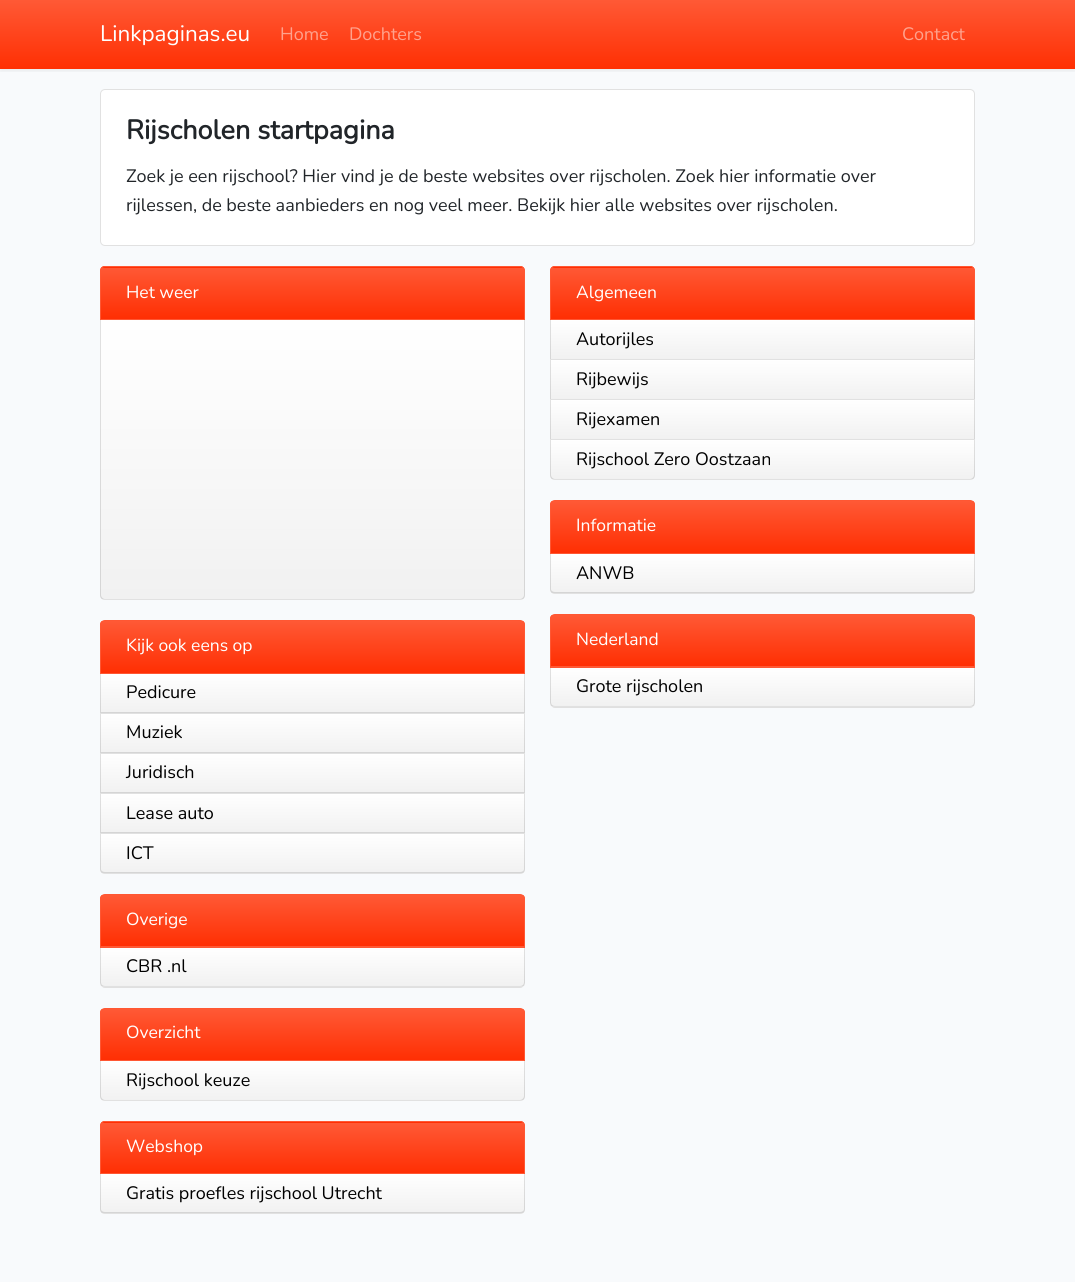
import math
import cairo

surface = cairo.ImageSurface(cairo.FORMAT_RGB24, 1075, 1282)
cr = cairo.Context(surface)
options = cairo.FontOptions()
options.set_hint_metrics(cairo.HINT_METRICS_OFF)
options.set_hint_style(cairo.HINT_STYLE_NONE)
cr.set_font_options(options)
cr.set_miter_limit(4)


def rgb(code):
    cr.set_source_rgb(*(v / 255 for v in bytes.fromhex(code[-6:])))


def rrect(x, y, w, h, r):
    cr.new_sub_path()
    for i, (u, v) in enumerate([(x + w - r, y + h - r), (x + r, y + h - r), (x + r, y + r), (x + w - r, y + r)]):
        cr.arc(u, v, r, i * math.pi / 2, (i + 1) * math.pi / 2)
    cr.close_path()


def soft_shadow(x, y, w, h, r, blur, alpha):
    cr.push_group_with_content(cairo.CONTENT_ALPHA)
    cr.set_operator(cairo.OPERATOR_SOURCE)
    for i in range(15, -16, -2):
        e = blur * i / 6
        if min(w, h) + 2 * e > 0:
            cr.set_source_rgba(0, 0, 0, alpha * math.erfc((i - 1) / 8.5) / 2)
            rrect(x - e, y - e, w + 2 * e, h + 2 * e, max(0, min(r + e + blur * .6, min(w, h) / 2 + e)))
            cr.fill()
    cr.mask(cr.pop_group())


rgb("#f8fafc")
cr.paint()
cr.save()
cr.rectangle(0, 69, 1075, 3)
cr.clip()
rgb("#000000")
soft_shadow(0, 3, 1075, 68, 0, 2.5, 0.07)
cr.restore()
gradient = cairo.LinearGradient(538, 0, 538, 69)
gradient.add_color_stop_rgba(0, 1, 0.341, 0.2, 0.99)
gradient.add_color_stop_rgba(1, 1, 0.176, 0, 0.99)
cr.set_source(gradient)
cr.rectangle(0, 0, 1075, 69)
cr.fill()
rgb("#ffffff")
rrect(100, 89, 875, 157, 5)
cr.fill()
rrect(100.5, 89.5, 874, 156, 4.5)
cr.set_source_rgba(0, 0, 0, 0.12)
cr.set_line_width(1)
cr.stroke()
cr.save()
cr.new_path()
cr.move_to(105, 266)
cr.line_to(520, 266)
cr.curve_to(523, 266, 525, 268, 525, 271)
cr.line_to(525, 320)
cr.line_to(100, 320)
cr.line_to(100, 271)
cr.curve_to(100, 268, 102, 266, 105, 266)
cr.close_path()
cr.clip()
gradient = cairo.LinearGradient(313, 216, 313, 268)
gradient.add_color_stop_rgba(0, 1, 0.349, 0.208, 1)
gradient.add_color_stop_rgba(1, 1, 0.184, 0.012, 1)
cr.set_source(gradient)
cr.rectangle(100, 266, 425, 2)
cr.fill()
gradient = cairo.LinearGradient(313, 267, 313, 319)
gradient.add_color_stop_rgba(0, 1, 0.349, 0.208, 1)
gradient.add_color_stop_rgba(1, 1, 0.184, 0.012, 1)
cr.set_source(gradient)
cr.rectangle(100, 268, 425, 51)
cr.fill()
cr.restore()
cr.new_path()
cr.move_to(105, 266.5)
cr.line_to(520, 266.5)
cr.curve_to(522.5, 266.5, 524.5, 268.5, 524.5, 271)
cr.line_to(524.5, 319.5)
cr.line_to(100.5, 319.5)
cr.line_to(100.5, 271)
cr.curve_to(100.5, 268.5, 102.5, 266.5, 105, 266.5)
cr.close_path()
rgb("#ff5733")
cr.stroke()
cr.save()
cr.new_path()
cr.move_to(100, 320)
cr.line_to(525, 320)
cr.line_to(525, 595)
cr.curve_to(525, 598, 523, 600, 520, 600)
cr.line_to(105, 600)
cr.curve_to(102, 600, 100, 598, 100, 595)
cr.close_path()
cr.clip()
gradient = cairo.LinearGradient(313, 320, 313, 599)
gradient.add_color_stop_rgba(0, 1, 1, 1, 1)
gradient.add_color_stop_rgba(1, 0.945, 0.945, 0.945, 1)
cr.set_source(gradient)
cr.rectangle(100, 320, 425, 279)
cr.fill()
gradient = cairo.LinearGradient(313, 599, 313, 878)
gradient.add_color_stop_rgba(0, 1, 1, 1, 1)
gradient.add_color_stop_rgba(1, 0.945, 0.945, 0.945, 1)
cr.set_source(gradient)
cr.rectangle(100, 599, 425, 1)
cr.fill()
cr.restore()
cr.set_source_rgba(0, 0, 0, 0.12)
cr.set_fill_rule(cairo.FILL_RULE_EVEN_ODD)
cr.new_path()
cr.move_to(100, 320)
cr.line_to(525, 320)
cr.line_to(525, 595)
cr.curve_to(525, 598, 523, 600, 520, 600)
cr.line_to(105, 600)
cr.curve_to(102, 600, 100, 598, 100, 595)
cr.close_path()
cr.move_to(101, 320)
cr.line_to(524, 320)
cr.line_to(524, 595)
cr.curve_to(524, 597, 522, 599, 520, 599)
cr.line_to(105, 599)
cr.curve_to(103, 599, 101, 597, 101, 595)
cr.close_path()
cr.fill()
cr.save()
cr.set_fill_rule(cairo.FILL_RULE_WINDING)
cr.new_path()
cr.move_to(105, 620)
cr.line_to(520, 620)
cr.curve_to(523, 620, 525, 622, 525, 625)
cr.line_to(525, 674)
cr.line_to(100, 674)
cr.line_to(100, 625)
cr.curve_to(100, 622, 102, 620, 105, 620)
cr.close_path()
cr.clip()
gradient = cairo.LinearGradient(313, 621, 313, 673)
gradient.add_color_stop_rgba(0, 1, 0.349, 0.208, 1)
gradient.add_color_stop_rgba(1, 1, 0.184, 0.012, 1)
cr.set_source(gradient)
cr.rectangle(100, 621, 425, 52)
cr.fill()
cr.restore()
cr.new_path()
cr.move_to(105, 620.5)
cr.line_to(520, 620.5)
cr.curve_to(522.5, 620.5, 524.5, 622.5, 524.5, 625)
cr.line_to(524.5, 673.5)
cr.line_to(100.5, 673.5)
cr.line_to(100.5, 625)
cr.curve_to(100.5, 622.5, 102.5, 620.5, 105, 620.5)
cr.close_path()
rgb("#ff5733")
cr.stroke()
gradient = cairo.LinearGradient(313, 674, 313, 713)
gradient.add_color_stop_rgba(0, 1, 1, 1, 1)
gradient.add_color_stop_rgba(1, 0.945, 0.945, 0.945, 1)
cr.set_source(gradient)
cr.rectangle(100, 674, 425, 39)
cr.fill()
gradient = cairo.LinearGradient(313, 713, 313, 751)
gradient.add_color_stop_rgba(0, 1, 1, 1, 1)
gradient.add_color_stop_rgba(1, 0.945, 0.945, 0.945, 1)
cr.set_source(gradient)
cr.rectangle(100, 713, 425, 1)
cr.fill()
cr.set_source_rgba(0, 0, 0, 0.12)
cr.set_fill_rule(cairo.FILL_RULE_WINDING)
cr.new_path()
cr.move_to(525, 674)
cr.line_to(525, 714)
cr.line_to(524, 712)
cr.line_to(524, 674)
cr.close_path()
cr.fill()
cr.new_path()
cr.move_to(525, 714)
cr.line_to(100, 714)
cr.line_to(101, 712)
cr.line_to(524, 712)
cr.close_path()
cr.fill()
cr.new_path()
cr.move_to(100, 714)
cr.line_to(100, 674)
cr.line_to(101, 674)
cr.line_to(101, 712)
cr.close_path()
cr.fill()
gradient = cairo.LinearGradient(313, 714, 313, 753)
gradient.add_color_stop_rgba(0, 1, 1, 1, 1)
gradient.add_color_stop_rgba(1, 0.945, 0.945, 0.945, 1)
cr.set_source(gradient)
cr.rectangle(100, 714, 425, 39)
cr.fill()
gradient = cairo.LinearGradient(313, 753, 313, 791)
gradient.add_color_stop_rgba(0, 1, 1, 1, 1)
gradient.add_color_stop_rgba(1, 0.945, 0.945, 0.945, 1)
cr.set_source(gradient)
cr.rectangle(100, 753, 425, 1)
cr.fill()
cr.set_source_rgba(0, 0, 0, 0.12)
cr.new_path()
cr.move_to(525, 714)
cr.line_to(525, 754)
cr.line_to(524, 752)
cr.line_to(524, 714)
cr.close_path()
cr.fill()
cr.new_path()
cr.move_to(525, 754)
cr.line_to(100, 754)
cr.line_to(101, 752)
cr.line_to(524, 752)
cr.close_path()
cr.fill()
cr.new_path()
cr.move_to(100, 754)
cr.line_to(100, 714)
cr.line_to(101, 714)
cr.line_to(101, 752)
cr.close_path()
cr.fill()
gradient = cairo.LinearGradient(313, 754, 313, 793)
gradient.add_color_stop_rgba(0, 1, 1, 1, 1)
gradient.add_color_stop_rgba(1, 0.945, 0.945, 0.945, 1)
cr.set_source(gradient)
cr.rectangle(100, 754, 425, 39)
cr.fill()
gradient = cairo.LinearGradient(313, 793, 313, 831)
gradient.add_color_stop_rgba(0, 1, 1, 1, 1)
gradient.add_color_stop_rgba(1, 0.945, 0.945, 0.945, 1)
cr.set_source(gradient)
cr.rectangle(100, 793, 425, 1)
cr.fill()
cr.set_source_rgba(0, 0, 0, 0.12)
cr.new_path()
cr.move_to(525, 754)
cr.line_to(525, 794)
cr.line_to(524, 792)
cr.line_to(524, 754)
cr.close_path()
cr.fill()
cr.new_path()
cr.move_to(525, 794)
cr.line_to(100, 794)
cr.line_to(101, 792)
cr.line_to(524, 792)
cr.close_path()
cr.fill()
cr.new_path()
cr.move_to(100, 794)
cr.line_to(100, 754)
cr.line_to(101, 754)
cr.line_to(101, 792)
cr.close_path()
cr.fill()
gradient = cairo.LinearGradient(313, 794, 313, 833)
gradient.add_color_stop_rgba(0, 1, 1, 1, 1)
gradient.add_color_stop_rgba(1, 0.945, 0.945, 0.945, 1)
cr.set_source(gradient)
cr.rectangle(100, 794, 425, 39)
cr.fill()
gradient = cairo.LinearGradient(313, 833, 313, 871)
gradient.add_color_stop_rgba(0, 1, 1, 1, 1)
gradient.add_color_stop_rgba(1, 0.945, 0.945, 0.945, 1)
cr.set_source(gradient)
cr.rectangle(100, 833, 425, 1)
cr.fill()
cr.set_source_rgba(0, 0, 0, 0.12)
cr.new_path()
cr.move_to(525, 794)
cr.line_to(525, 834)
cr.line_to(524, 832)
cr.line_to(524, 794)
cr.close_path()
cr.fill()
cr.new_path()
cr.move_to(525, 834)
cr.line_to(100, 834)
cr.line_to(101, 832)
cr.line_to(524, 832)
cr.close_path()
cr.fill()
cr.new_path()
cr.move_to(100, 834)
cr.line_to(100, 794)
cr.line_to(101, 794)
cr.line_to(101, 832)
cr.close_path()
cr.fill()
cr.save()
cr.new_path()
cr.move_to(100, 834)
cr.line_to(525, 834)
cr.line_to(525, 869)
cr.curve_to(525, 872, 523, 874, 520, 874)
cr.line_to(105, 874)
cr.curve_to(102, 874, 100, 872, 100, 869)
cr.close_path()
cr.clip()
gradient = cairo.LinearGradient(313, 834, 313, 873)
gradient.add_color_stop_rgba(0, 1, 1, 1, 1)
gradient.add_color_stop_rgba(1, 0.945, 0.945, 0.945, 1)
cr.set_source(gradient)
cr.rectangle(100, 834, 425, 39)
cr.fill()
gradient = cairo.LinearGradient(313, 873, 313, 911)
gradient.add_color_stop_rgba(0, 1, 1, 1, 1)
gradient.add_color_stop_rgba(1, 0.945, 0.945, 0.945, 1)
cr.set_source(gradient)
cr.rectangle(100, 873, 425, 1)
cr.fill()
cr.restore()
cr.set_fill_rule(cairo.FILL_RULE_EVEN_ODD)
cr.new_path()
cr.move_to(100, 834)
cr.line_to(525, 834)
cr.line_to(525, 869)
cr.curve_to(525, 872, 523, 874, 520, 874)
cr.line_to(105, 874)
cr.curve_to(102, 874, 100, 872, 100, 869)
cr.close_path()
cr.move_to(101, 834)
cr.line_to(524, 834)
cr.line_to(524, 869)
cr.curve_to(524, 871, 522, 872, 520, 872)
cr.line_to(105, 872)
cr.curve_to(103, 872, 101, 871, 101, 869)
cr.close_path()
cr.fill()
cr.save()
cr.set_fill_rule(cairo.FILL_RULE_WINDING)
cr.new_path()
cr.move_to(555, 266)
cr.line_to(970, 266)
cr.curve_to(973, 266, 975, 268, 975, 271)
cr.line_to(975, 320)
cr.line_to(550, 320)
cr.line_to(550, 271)
cr.curve_to(550, 268, 552, 266, 555, 266)
cr.close_path()
cr.clip()
gradient = cairo.LinearGradient(763, 216, 763, 268)
gradient.add_color_stop_rgba(0, 1, 0.349, 0.208, 1)
gradient.add_color_stop_rgba(1, 1, 0.184, 0.012, 1)
cr.set_source(gradient)
cr.rectangle(550, 266, 425, 2)
cr.fill()
gradient = cairo.LinearGradient(763, 267, 763, 319)
gradient.add_color_stop_rgba(0, 1, 0.349, 0.208, 1)
gradient.add_color_stop_rgba(1, 1, 0.184, 0.012, 1)
cr.set_source(gradient)
cr.rectangle(550, 268, 425, 51)
cr.fill()
cr.restore()
cr.new_path()
cr.move_to(555, 266.5)
cr.line_to(970, 266.5)
cr.curve_to(972.5, 266.5, 974.5, 268.5, 974.5, 271)
cr.line_to(974.5, 319.5)
cr.line_to(550.5, 319.5)
cr.line_to(550.5, 271)
cr.curve_to(550.5, 268.5, 552.5, 266.5, 555, 266.5)
cr.close_path()
rgb("#ff5733")
cr.stroke()
gradient = cairo.LinearGradient(763, 320, 763, 359)
gradient.add_color_stop_rgba(0, 1, 1, 1, 1)
gradient.add_color_stop_rgba(1, 0.945, 0.945, 0.945, 1)
cr.set_source(gradient)
cr.rectangle(550, 320, 425, 39)
cr.fill()
gradient = cairo.LinearGradient(763, 359, 763, 398)
gradient.add_color_stop_rgba(0, 1, 1, 1, 1)
gradient.add_color_stop_rgba(1, 0.945, 0.945, 0.945, 1)
cr.set_source(gradient)
cr.rectangle(550, 359, 425, 1)
cr.fill()
cr.set_source_rgba(0, 0, 0, 0.12)
cr.set_fill_rule(cairo.FILL_RULE_WINDING)
cr.new_path()
cr.move_to(975, 320)
cr.line_to(975, 360)
cr.line_to(974, 359)
cr.line_to(974, 320)
cr.close_path()
cr.fill()
cr.new_path()
cr.move_to(975, 360)
cr.line_to(550, 360)
cr.line_to(551, 359)
cr.line_to(974, 359)
cr.close_path()
cr.fill()
cr.new_path()
cr.move_to(550, 360)
cr.line_to(550, 320)
cr.line_to(551, 320)
cr.line_to(551, 359)
cr.close_path()
cr.fill()
gradient = cairo.LinearGradient(763, 360, 763, 399)
gradient.add_color_stop_rgba(0, 1, 1, 1, 1)
gradient.add_color_stop_rgba(1, 0.945, 0.945, 0.945, 1)
cr.set_source(gradient)
cr.rectangle(550, 360, 425, 39)
cr.fill()
gradient = cairo.LinearGradient(763, 399, 763, 438)
gradient.add_color_stop_rgba(0, 1, 1, 1, 1)
gradient.add_color_stop_rgba(1, 0.945, 0.945, 0.945, 1)
cr.set_source(gradient)
cr.rectangle(550, 399, 425, 1)
cr.fill()
cr.set_source_rgba(0, 0, 0, 0.12)
cr.new_path()
cr.move_to(975, 360)
cr.line_to(975, 400)
cr.line_to(974, 399)
cr.line_to(974, 360)
cr.close_path()
cr.fill()
cr.new_path()
cr.move_to(975, 400)
cr.line_to(550, 400)
cr.line_to(551, 399)
cr.line_to(974, 399)
cr.close_path()
cr.fill()
cr.new_path()
cr.move_to(550, 400)
cr.line_to(550, 360)
cr.line_to(551, 360)
cr.line_to(551, 399)
cr.close_path()
cr.fill()
gradient = cairo.LinearGradient(763, 400, 763, 439)
gradient.add_color_stop_rgba(0, 1, 1, 1, 1)
gradient.add_color_stop_rgba(1, 0.945, 0.945, 0.945, 1)
cr.set_source(gradient)
cr.rectangle(550, 400, 425, 39)
cr.fill()
gradient = cairo.LinearGradient(763, 439, 763, 478)
gradient.add_color_stop_rgba(0, 1, 1, 1, 1)
gradient.add_color_stop_rgba(1, 0.945, 0.945, 0.945, 1)
cr.set_source(gradient)
cr.rectangle(550, 439, 425, 1)
cr.fill()
cr.set_source_rgba(0, 0, 0, 0.12)
cr.new_path()
cr.move_to(975, 400)
cr.line_to(975, 440)
cr.line_to(974, 439)
cr.line_to(974, 400)
cr.close_path()
cr.fill()
cr.new_path()
cr.move_to(975, 440)
cr.line_to(550, 440)
cr.line_to(551, 439)
cr.line_to(974, 439)
cr.close_path()
cr.fill()
cr.new_path()
cr.move_to(550, 440)
cr.line_to(550, 400)
cr.line_to(551, 400)
cr.line_to(551, 439)
cr.close_path()
cr.fill()
cr.save()
cr.new_path()
cr.move_to(550, 440)
cr.line_to(975, 440)
cr.line_to(975, 475)
cr.curve_to(975, 478, 973, 480, 970, 480)
cr.line_to(555, 480)
cr.curve_to(552, 480, 550, 478, 550, 475)
cr.close_path()
cr.clip()
gradient = cairo.LinearGradient(763, 440, 763, 479)
gradient.add_color_stop_rgba(0, 1, 1, 1, 1)
gradient.add_color_stop_rgba(1, 0.945, 0.945, 0.945, 1)
cr.set_source(gradient)
cr.rectangle(550, 440, 425, 39)
cr.fill()
gradient = cairo.LinearGradient(763, 479, 763, 518)
gradient.add_color_stop_rgba(0, 1, 1, 1, 1)
gradient.add_color_stop_rgba(1, 0.945, 0.945, 0.945, 1)
cr.set_source(gradient)
cr.rectangle(550, 479, 425, 1)
cr.fill()
cr.restore()
cr.set_fill_rule(cairo.FILL_RULE_EVEN_ODD)
cr.new_path()
cr.move_to(550, 440)
cr.line_to(975, 440)
cr.line_to(975, 475)
cr.curve_to(975, 478, 973, 480, 970, 480)
cr.line_to(555, 480)
cr.curve_to(552, 480, 550, 478, 550, 475)
cr.close_path()
cr.move_to(551, 440)
cr.line_to(974, 440)
cr.line_to(974, 475)
cr.curve_to(974, 477, 972, 479, 970, 479)
cr.line_to(555, 479)
cr.curve_to(553, 479, 551, 477, 551, 475)
cr.close_path()
cr.fill()
cr.save()
cr.set_fill_rule(cairo.FILL_RULE_WINDING)
cr.new_path()
cr.move_to(555, 500)
cr.line_to(970, 500)
cr.curve_to(973, 500, 975, 502, 975, 505)
cr.line_to(975, 554)
cr.line_to(550, 554)
cr.line_to(550, 505)
cr.curve_to(550, 502, 552, 500, 555, 500)
cr.close_path()
cr.clip()
gradient = cairo.LinearGradient(763, 501, 763, 553)
gradient.add_color_stop_rgba(0, 1, 0.349, 0.208, 1)
gradient.add_color_stop_rgba(1, 1, 0.184, 0.012, 1)
cr.set_source(gradient)
cr.rectangle(550, 501, 425, 52)
cr.fill()
cr.restore()
cr.new_path()
cr.move_to(555, 500.5)
cr.line_to(970, 500.5)
cr.curve_to(972.5, 500.5, 974.5, 502.5, 974.5, 505)
cr.line_to(974.5, 553.5)
cr.line_to(550.5, 553.5)
cr.line_to(550.5, 505)
cr.curve_to(550.5, 502.5, 552.5, 500.5, 555, 500.5)
cr.close_path()
rgb("#ff5733")
cr.stroke()
cr.save()
cr.set_fill_rule(cairo.FILL_RULE_WINDING)
cr.new_path()
cr.move_to(550, 554)
cr.line_to(975, 554)
cr.line_to(975, 589)
cr.curve_to(975, 592, 973, 594, 970, 594)
cr.line_to(555, 594)
cr.curve_to(552, 594, 550, 592, 550, 589)
cr.close_path()
cr.clip()
gradient = cairo.LinearGradient(763, 554, 763, 593)
gradient.add_color_stop_rgba(0, 1, 1, 1, 1)
gradient.add_color_stop_rgba(1, 0.945, 0.945, 0.945, 1)
cr.set_source(gradient)
cr.rectangle(550, 554, 425, 39)
cr.fill()
gradient = cairo.LinearGradient(763, 593, 763, 631)
gradient.add_color_stop_rgba(0, 1, 1, 1, 1)
gradient.add_color_stop_rgba(1, 0.945, 0.945, 0.945, 1)
cr.set_source(gradient)
cr.rectangle(550, 593, 425, 1)
cr.fill()
cr.restore()
cr.set_source_rgba(0, 0, 0, 0.12)
cr.new_path()
cr.move_to(550, 554)
cr.line_to(975, 554)
cr.line_to(975, 589)
cr.curve_to(975, 592, 973, 594, 970, 594)
cr.line_to(555, 594)
cr.curve_to(552, 594, 550, 592, 550, 589)
cr.close_path()
cr.move_to(551, 554)
cr.line_to(974, 554)
cr.line_to(974, 589)
cr.curve_to(974, 591, 972, 592, 970, 592)
cr.line_to(555, 592)
cr.curve_to(553, 592, 551, 591, 551, 589)
cr.close_path()
cr.fill()
cr.save()
cr.set_fill_rule(cairo.FILL_RULE_WINDING)
cr.new_path()
cr.move_to(555, 614)
cr.line_to(970, 614)
cr.curve_to(973, 614, 975, 616, 975, 619)
cr.line_to(975, 668)
cr.line_to(550, 668)
cr.line_to(550, 619)
cr.curve_to(550, 616, 552, 614, 555, 614)
cr.close_path()
cr.clip()
gradient = cairo.LinearGradient(763, 615, 763, 666)
gradient.add_color_stop_rgba(0, 1, 0.349, 0.208, 1)
gradient.add_color_stop_rgba(1, 1, 0.184, 0.012, 1)
cr.set_source(gradient)
cr.rectangle(550, 615, 425, 51)
cr.fill()
cr.restore()
gradient = cairo.LinearGradient(763, 666, 763, 718)
gradient.add_color_stop_rgba(0, 1, 0.349, 0.208, 1)
gradient.add_color_stop_rgba(1, 1, 0.184, 0.012, 1)
cr.set_source(gradient)
cr.rectangle(550, 666, 425, 1)
cr.fill()
cr.new_path()
cr.move_to(555, 614.5)
cr.line_to(970, 614.5)
cr.curve_to(972.5, 614.5, 974.5, 616.5, 974.5, 619)
cr.line_to(974.5, 667.5)
cr.line_to(550.5, 667.5)
cr.line_to(550.5, 619)
cr.curve_to(550.5, 616.5, 552.5, 614.5, 555, 614.5)
cr.close_path()
rgb("#ff5733")
cr.stroke()
cr.save()
cr.set_fill_rule(cairo.FILL_RULE_WINDING)
cr.new_path()
cr.move_to(550, 668)
cr.line_to(975, 668)
cr.line_to(975, 703)
cr.curve_to(975, 706, 973, 708, 970, 708)
cr.line_to(555, 708)
cr.curve_to(552, 708, 550, 706, 550, 703)
cr.close_path()
cr.clip()
gradient = cairo.LinearGradient(763, 668, 763, 706)
gradient.add_color_stop_rgba(0, 1, 1, 1, 1)
gradient.add_color_stop_rgba(1, 0.945, 0.945, 0.945, 1)
cr.set_source(gradient)
cr.rectangle(550, 668, 425, 38)
cr.fill()
gradient = cairo.LinearGradient(763, 706, 763, 745)
gradient.add_color_stop_rgba(0, 1, 1, 1, 1)
gradient.add_color_stop_rgba(1, 0.945, 0.945, 0.945, 1)
cr.set_source(gradient)
cr.rectangle(550, 706, 425, 2)
cr.fill()
cr.restore()
cr.set_source_rgba(0, 0, 0, 0.12)
cr.new_path()
cr.move_to(550, 668)
cr.line_to(975, 668)
cr.line_to(975, 702)
cr.curve_to(975, 705, 973, 708, 970, 708)
cr.line_to(555, 708)
cr.curve_to(552, 708, 550, 705, 550, 702)
cr.close_path()
cr.move_to(551, 668)
cr.line_to(974, 668)
cr.line_to(974, 702)
cr.curve_to(974, 705, 972, 706, 970, 706)
cr.line_to(555, 706)
cr.curve_to(553, 706, 551, 705, 551, 702)
cr.close_path()
cr.fill()
cr.save()
cr.set_fill_rule(cairo.FILL_RULE_WINDING)
cr.new_path()
cr.move_to(105, 894)
cr.line_to(520, 894)
cr.curve_to(523, 894, 525, 896, 525, 899)
cr.line_to(525, 948)
cr.line_to(100, 948)
cr.line_to(100, 899)
cr.curve_to(100, 896, 102, 894, 105, 894)
cr.close_path()
cr.clip()
gradient = cairo.LinearGradient(313, 895, 313, 946)
gradient.add_color_stop_rgba(0, 1, 0.349, 0.208, 1)
gradient.add_color_stop_rgba(1, 1, 0.184, 0.012, 1)
cr.set_source(gradient)
cr.rectangle(100, 895, 425, 51)
cr.fill()
cr.restore()
gradient = cairo.LinearGradient(313, 946, 313, 998)
gradient.add_color_stop_rgba(0, 1, 0.349, 0.208, 1)
gradient.add_color_stop_rgba(1, 1, 0.184, 0.012, 1)
cr.set_source(gradient)
cr.rectangle(100, 946, 425, 1)
cr.fill()
cr.new_path()
cr.move_to(105, 894.5)
cr.line_to(520, 894.5)
cr.curve_to(522.5, 894.5, 524.5, 896.5, 524.5, 899)
cr.line_to(524.5, 947.5)
cr.line_to(100.5, 947.5)
cr.line_to(100.5, 899)
cr.curve_to(100.5, 896.5, 102.5, 894.5, 105, 894.5)
cr.close_path()
rgb("#ff5733")
cr.stroke()
cr.save()
cr.set_fill_rule(cairo.FILL_RULE_WINDING)
cr.new_path()
cr.move_to(100, 948)
cr.line_to(525, 948)
cr.line_to(525, 983)
cr.curve_to(525, 986, 523, 988, 520, 988)
cr.line_to(105, 988)
cr.curve_to(102, 988, 100, 986, 100, 983)
cr.close_path()
cr.clip()
gradient = cairo.LinearGradient(313, 948, 313, 986)
gradient.add_color_stop_rgba(0, 1, 1, 1, 1)
gradient.add_color_stop_rgba(1, 0.945, 0.945, 0.945, 1)
cr.set_source(gradient)
cr.rectangle(100, 948, 425, 38)
cr.fill()
gradient = cairo.LinearGradient(313, 986, 313, 1025)
gradient.add_color_stop_rgba(0, 1, 1, 1, 1)
gradient.add_color_stop_rgba(1, 0.945, 0.945, 0.945, 1)
cr.set_source(gradient)
cr.rectangle(100, 986, 425, 2)
cr.fill()
cr.restore()
cr.set_source_rgba(0, 0, 0, 0.12)
cr.new_path()
cr.move_to(100, 948)
cr.line_to(525, 948)
cr.line_to(525, 982)
cr.curve_to(525, 985, 523, 988, 520, 988)
cr.line_to(105, 988)
cr.curve_to(102, 988, 100, 985, 100, 982)
cr.close_path()
cr.move_to(101, 948)
cr.line_to(524, 948)
cr.line_to(524, 982)
cr.curve_to(524, 985, 522, 986, 520, 986)
cr.line_to(105, 986)
cr.curve_to(103, 986, 101, 985, 101, 982)
cr.close_path()
cr.fill()
cr.save()
cr.set_fill_rule(cairo.FILL_RULE_WINDING)
cr.new_path()
cr.move_to(105, 1008)
cr.line_to(520, 1008)
cr.curve_to(523, 1008, 525, 1010, 525, 1013)
cr.line_to(525, 1061)
cr.line_to(100, 1061)
cr.line_to(100, 1013)
cr.curve_to(100, 1010, 102, 1008, 105, 1008)
cr.close_path()
cr.clip()
gradient = cairo.LinearGradient(313, 1009, 313, 1060)
gradient.add_color_stop_rgba(0, 1, 0.349, 0.208, 1)
gradient.add_color_stop_rgba(1, 1, 0.184, 0.012, 1)
cr.set_source(gradient)
cr.rectangle(100, 1009, 425, 51)
cr.fill()
cr.restore()
cr.new_path()
cr.move_to(105, 1008.5)
cr.line_to(520, 1008.5)
cr.curve_to(522.5, 1008.5, 524.5, 1010.5, 524.5, 1013)
cr.line_to(524.5, 1060.5)
cr.line_to(100.5, 1060.5)
cr.line_to(100.5, 1013)
cr.curve_to(100.5, 1010.5, 102.5, 1008.5, 105, 1008.5)
cr.close_path()
rgb("#ff5733")
cr.stroke()
cr.save()
cr.set_fill_rule(cairo.FILL_RULE_WINDING)
cr.new_path()
cr.move_to(100, 1061)
cr.line_to(525, 1061)
cr.line_to(525, 1096)
cr.curve_to(525, 1099, 523, 1101, 520, 1101)
cr.line_to(105, 1101)
cr.curve_to(102, 1101, 100, 1099, 100, 1096)
cr.close_path()
cr.clip()
gradient = cairo.LinearGradient(313, 1061, 313, 1100)
gradient.add_color_stop_rgba(0, 1, 1, 1, 1)
gradient.add_color_stop_rgba(1, 0.945, 0.945, 0.945, 1)
cr.set_source(gradient)
cr.rectangle(100, 1061, 425, 39)
cr.fill()
gradient = cairo.LinearGradient(313, 1100, 313, 1139)
gradient.add_color_stop_rgba(0, 1, 1, 1, 1)
gradient.add_color_stop_rgba(1, 0.945, 0.945, 0.945, 1)
cr.set_source(gradient)
cr.rectangle(100, 1100, 425, 1)
cr.fill()
cr.restore()
cr.set_source_rgba(0, 0, 0, 0.12)
cr.new_path()
cr.move_to(100, 1061)
cr.line_to(525, 1061)
cr.line_to(525, 1096)
cr.curve_to(525, 1099, 523, 1101, 520, 1101)
cr.line_to(105, 1101)
cr.curve_to(102, 1101, 100, 1099, 100, 1096)
cr.close_path()
cr.move_to(101, 1061)
cr.line_to(524, 1061)
cr.line_to(524, 1096)
cr.curve_to(524, 1098, 522, 1100, 520, 1100)
cr.line_to(105, 1100)
cr.curve_to(103, 1100, 101, 1098, 101, 1096)
cr.close_path()
cr.fill()
cr.save()
cr.set_fill_rule(cairo.FILL_RULE_WINDING)
cr.new_path()
cr.move_to(105, 1121)
cr.line_to(520, 1121)
cr.curve_to(523, 1121, 525, 1123, 525, 1126)
cr.line_to(525, 1174)
cr.line_to(100, 1174)
cr.line_to(100, 1126)
cr.curve_to(100, 1123, 102, 1121, 105, 1121)
cr.close_path()
cr.clip()
gradient = cairo.LinearGradient(313, 1073, 313, 1123)
gradient.add_color_stop_rgba(0, 1, 0.349, 0.208, 1)
gradient.add_color_stop_rgba(1, 1, 0.184, 0.012, 1)
cr.set_source(gradient)
cr.rectangle(100, 1121, 425, 2)
cr.fill()
gradient = cairo.LinearGradient(313, 1123, 313, 1173)
gradient.add_color_stop_rgba(0, 1, 0.349, 0.208, 1)
gradient.add_color_stop_rgba(1, 1, 0.184, 0.012, 1)
cr.set_source(gradient)
cr.rectangle(100, 1123, 425, 50)
cr.fill()
cr.restore()
cr.new_path()
cr.move_to(105, 1121.5)
cr.line_to(520, 1121.5)
cr.curve_to(522.5, 1121.5, 524.5, 1123.5, 524.5, 1126)
cr.line_to(524.5, 1173.5)
cr.line_to(100.5, 1173.5)
cr.line_to(100.5, 1126)
cr.curve_to(100.5, 1123.5, 102.5, 1121.5, 105, 1121.5)
cr.close_path()
rgb("#ff5733")
cr.stroke()
cr.save()
cr.set_fill_rule(cairo.FILL_RULE_WINDING)
cr.new_path()
cr.move_to(100, 1174)
cr.line_to(525, 1174)
cr.line_to(525, 1209)
cr.curve_to(525, 1212, 523, 1214, 520, 1214)
cr.line_to(105, 1214)
cr.curve_to(102, 1214, 100, 1212, 100, 1209)
cr.close_path()
cr.clip()
gradient = cairo.LinearGradient(313, 1174, 313, 1213)
gradient.add_color_stop_rgba(0, 1, 1, 1, 1)
gradient.add_color_stop_rgba(1, 0.945, 0.945, 0.945, 1)
cr.set_source(gradient)
cr.rectangle(100, 1174, 425, 39)
cr.fill()
gradient = cairo.LinearGradient(313, 1213, 313, 1251)
gradient.add_color_stop_rgba(0, 1, 1, 1, 1)
gradient.add_color_stop_rgba(1, 0.945, 0.945, 0.945, 1)
cr.set_source(gradient)
cr.rectangle(100, 1213, 425, 1)
cr.fill()
cr.restore()
cr.set_source_rgba(0, 0, 0, 0.12)
cr.new_path()
cr.move_to(100, 1174)
cr.line_to(525, 1174)
cr.line_to(525, 1209)
cr.curve_to(525, 1212, 523, 1214, 520, 1214)
cr.line_to(105, 1214)
cr.curve_to(102, 1214, 100, 1212, 100, 1209)
cr.close_path()
cr.move_to(101, 1174)
cr.line_to(524, 1174)
cr.line_to(524, 1209)
cr.curve_to(524, 1211, 522, 1212, 520, 1212)
cr.line_to(105, 1212)
cr.curve_to(103, 1212, 101, 1211, 101, 1209)
cr.close_path()
cr.fill()
cr.select_font_face("Nunito ExtraLight")
cr.set_font_size(22.5)
rgb("#ffffff")
cr.move_to(100, 41)
cr.show_text("Linkpaginas.eu")
cr.set_font_size(18)
rgb("#ffa28d")
for x, y, s in [
    (280, 40, "Home"),
    (349, 40, "Dochters"),
    (902, 40, "Contact"),
]:
    cr.move_to(x, y)
    cr.show_text(s)
cr.select_font_face("Nunito", cairo.FONT_SLANT_NORMAL, cairo.FONT_WEIGHT_BOLD)
cr.set_font_size(27)
rgb("#212529")
cr.move_to(126, 139)
cr.show_text("Rijscholen startpagina")
cr.select_font_face("Nunito ExtraLight")
cr.set_font_size(18)
cr.move_to(126, 182)
cr.show_text("Zoek je een rijschool? Hier vind je de beste websites over rijscholen. Zoek hier informatie over")
cr.move_to(126, 211)
cr.show_text("rijlessen, de beste aanbieders en nog veel meer. Bekijk hier alle websites over rijscholen.")
cr.set_font_size(17.5)
rgb("#ffffff")
cr.move_to(126, 298)
cr.show_text("Het weer")
cr.move_to(126, 651)
cr.show_text("Kijk ook eens op")
cr.set_font_size(18)
rgb("#000000")
for x, y, s in [
    (126, 698, "Pedicure"),
    (126, 738, "Muziek"),
    (126, 778, "Juridisch"),
    (126, 819, "Lease auto"),
    (126, 859, "ICT"),
]:
    cr.move_to(x, y)
    cr.show_text(s)
cr.set_font_size(17.5)
rgb("#ffffff")
cr.move_to(576, 298)
cr.show_text("Algemeen")
cr.set_font_size(18)
rgb("#000000")
for x, y, s in [
    (576, 345, "Autorijles"),
    (576, 385, "Rijbewijs"),
    (576, 425, "Rijexamen"),
    (576, 465, "Rijschool Zero Oostzaan"),
]:
    cr.move_to(x, y)
    cr.show_text(s)
cr.set_font_size(17.5)
rgb("#ffffff")
cr.move_to(576, 531)
cr.show_text("Informatie")
cr.set_font_size(18)
rgb("#000000")
cr.move_to(576, 579)
cr.show_text("ANWB")
cr.set_font_size(17.5)
rgb("#ffffff")
cr.move_to(576, 645)
cr.show_text("Nederland")
cr.set_font_size(18)
rgb("#000000")
cr.move_to(576, 692)
cr.show_text("Grote rijscholen")
cr.set_font_size(17.5)
rgb("#ffffff")
cr.move_to(126, 925)
cr.show_text("Overige")
cr.set_font_size(18)
rgb("#000000")
cr.move_to(126, 972)
cr.show_text("CBR .nl")
cr.set_font_size(17.5)
rgb("#ffffff")
cr.move_to(126, 1038)
cr.show_text("Overzicht")
cr.set_font_size(18)
rgb("#000000")
cr.move_to(126, 1086)
cr.show_text("Rijschool keuze")
cr.set_font_size(17.5)
rgb("#ffffff")
cr.move_to(126, 1152)
cr.show_text("Webshop")
cr.set_font_size(18)
rgb("#000000")
cr.move_to(126, 1199)
cr.show_text("Gratis proefles rijschool Utrecht")
surface.write_to_png("page.png")
